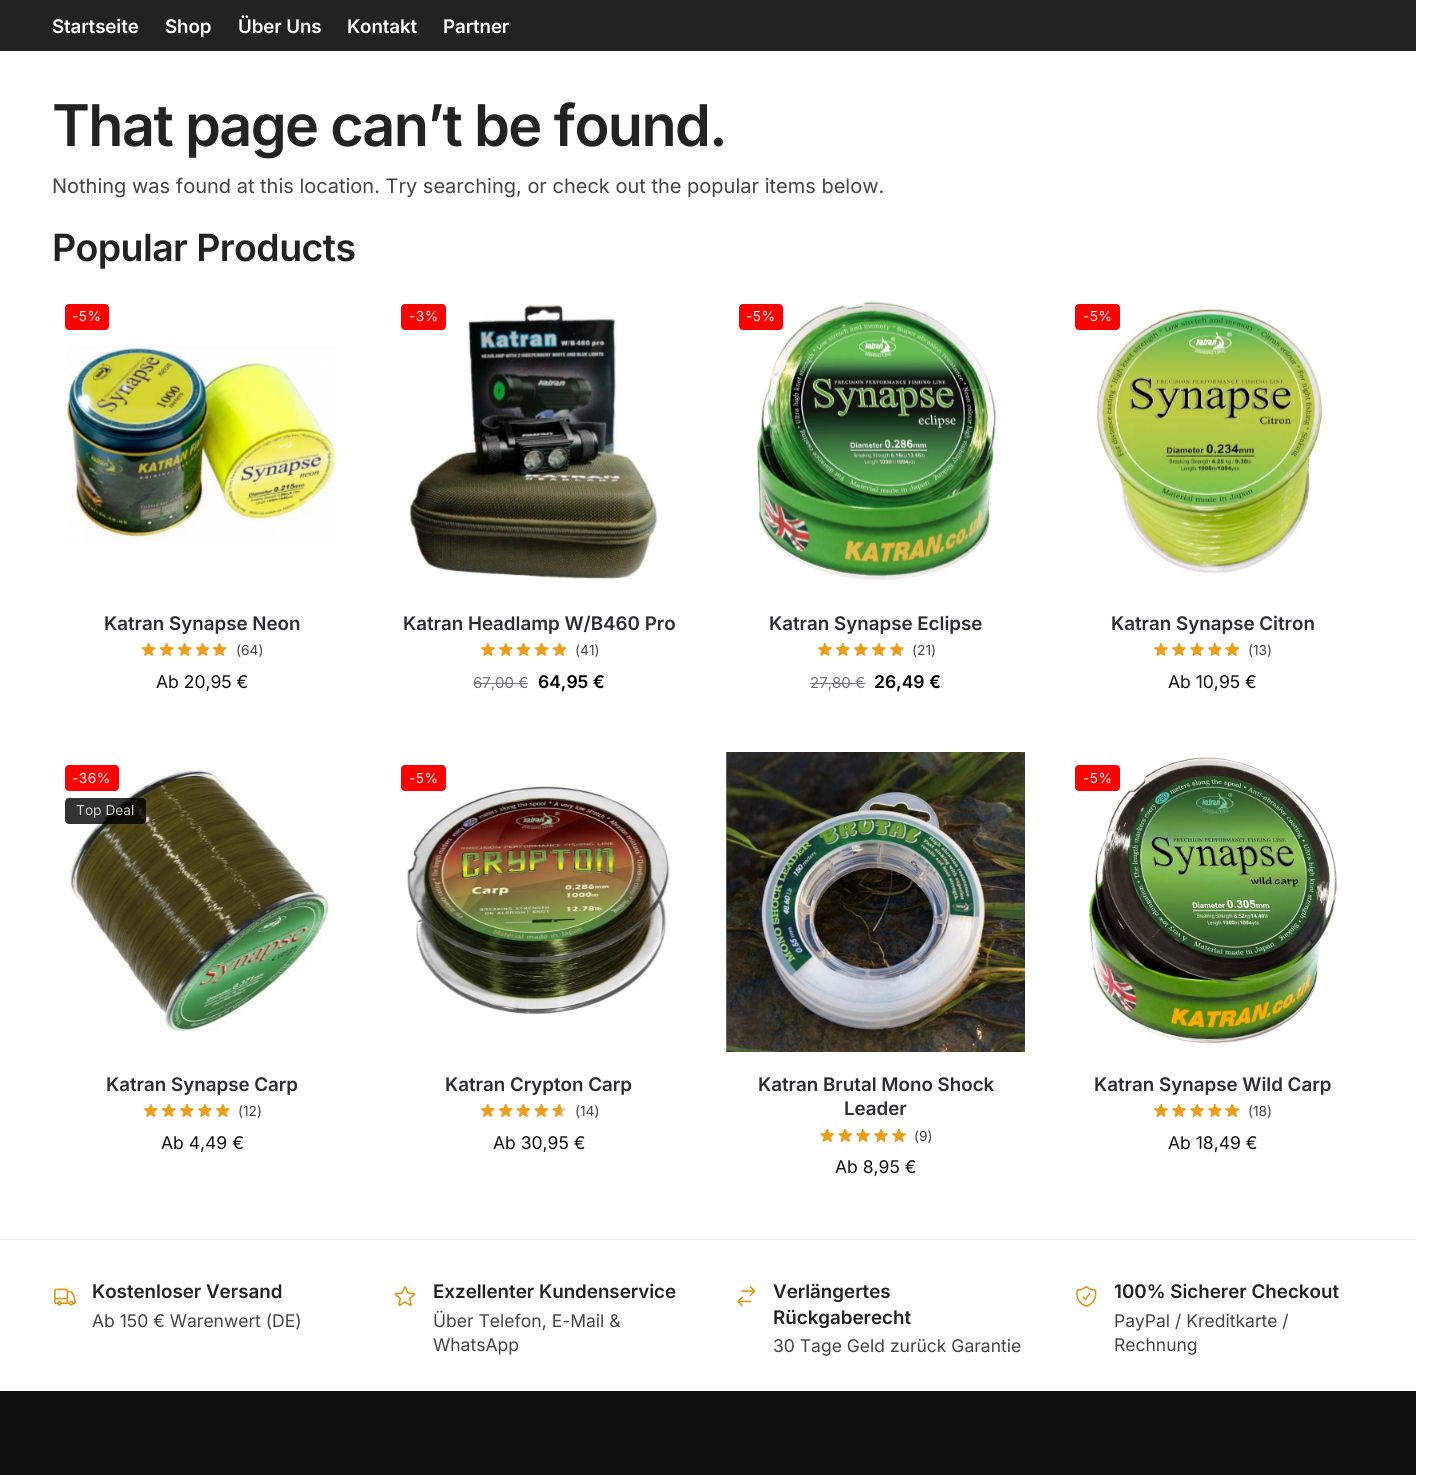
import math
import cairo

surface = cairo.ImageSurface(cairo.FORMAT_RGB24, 1435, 1475)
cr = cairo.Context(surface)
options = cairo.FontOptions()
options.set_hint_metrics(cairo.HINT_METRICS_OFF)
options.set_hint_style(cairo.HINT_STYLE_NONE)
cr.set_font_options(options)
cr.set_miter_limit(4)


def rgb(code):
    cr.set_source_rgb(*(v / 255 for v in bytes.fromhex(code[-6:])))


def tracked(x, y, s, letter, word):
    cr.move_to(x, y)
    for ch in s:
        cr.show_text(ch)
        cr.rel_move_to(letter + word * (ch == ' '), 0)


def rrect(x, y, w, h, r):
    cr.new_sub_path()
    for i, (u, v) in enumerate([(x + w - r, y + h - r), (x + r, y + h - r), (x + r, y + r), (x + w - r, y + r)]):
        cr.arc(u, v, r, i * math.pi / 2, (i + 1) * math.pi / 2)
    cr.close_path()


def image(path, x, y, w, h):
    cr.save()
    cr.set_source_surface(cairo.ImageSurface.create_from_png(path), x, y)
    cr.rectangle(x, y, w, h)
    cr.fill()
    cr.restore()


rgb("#ffffff")
cr.paint()
rgb("#222222")
cr.rectangle(0, 0, 1416, 51)
cr.fill()
rgb("#ff0000")
rrect(65, 304, 44, 26, 4)
cr.fill()
image("img/1.png", 66, 345, 271, 196)
image("img/3.png", 142, 643, 85, 13)
image("img/2.png", 141, 643, 86, 13)
image("img/4.png", 409, 304, 249, 275)
rrect(401, 304, 45, 26, 4)
cr.fill()
image("img/6.png", 481, 643, 85, 13)
image("img/5.png", 480, 643, 87, 13)
rgb("#72767c")
cr.rectangle(474, 683, 54, 1)
cr.fill()
image("img/7.png", 756, 301, 241, 279)
rgb("#ff0000")
rrect(739, 304, 44, 26, 4)
cr.fill()
image("img/9.png", 818, 643, 86, 13)
image("img/8.png", 817, 643, 87, 13)
rgb("#72767c")
cr.rectangle(810, 683, 55, 1)
cr.fill()
image("img/10.png", 1096, 309, 226, 265)
rgb("#ff0000")
rrect(1075, 304, 45, 26, 4)
cr.fill()
image("img/9.png", 1154, 643, 86, 13)
image("img/11.png", 1154, 643, 85, 13)
image("img/12.png", 69, 768, 261, 264)
rrect(65, 765, 54, 26, 4)
cr.fill()
cr.set_source_rgba(0, 0, 0, 0.8)
rrect(65, 798, 81, 26, 4)
cr.fill()
image("img/9.png", 144, 1104, 86, 13)
image("img/13.png", 143, 1104, 87, 13)
image("img/14.png", 407, 786, 263, 229)
rgb("#ff0000")
rrect(401, 765, 45, 26, 4)
cr.fill()
image("img/6.png", 481, 1104, 85, 13)
image("img/15.png", 480, 1104, 82, 13)
image("img/16.png", 726, 752, 299, 300)
image("img/6.png", 821, 1129, 85, 13)
image("img/17.png", 820, 1129, 86, 13)
image("img/18.png", 1088, 757, 250, 288)
rrect(1075, 765, 45, 26, 4)
cr.fill()
image("img/9.png", 1154, 1104, 86, 13)
image("img/11.png", 1154, 1104, 85, 13)
rgb("#eeeeee")
cr.rectangle(0, 1239, 1416, 1)
cr.fill()
image("img/19.png", 54, 1288, 22, 18)
image("img/20.png", 394, 1286, 22, 20)
image("img/21.png", 737, 1286, 19, 21)
image("img/22.png", 1076, 1285, 21, 22)
rgb("#111111")
cr.rectangle(0, 1391, 1416, 84)
cr.fill()
cr.select_font_face("Inter SemiBold")
cr.set_font_size(18.75)
rgb("#ffffff")
for x, y, s in [
    (52, 33, "Startseite"),
    (165, 33, "Shop"),
    (238, 33, "Über Uns"),
    (347, 33, "Kontakt"),
    (443, 33, "Partner"),
]:
    tracked(x, y, s, -0.1, 0)
cr.set_font_size(57.5)
rgb("#222222")
tracked(52, 146, "That page can’t be found.", -1.6, 0)
cr.select_font_face("Inter")
cr.set_font_size(20)
rgb("#444444")
cr.move_to(52, 193)
cr.show_text("Nothing was found at this location. Try searching, or check out the popular items below.")
cr.select_font_face("Inter SemiBold")
cr.set_font_size(37.5)
rgb("#222222")
tracked(52, 261, "Popular Products", -0.6, 0)
cr.select_font_face("Inter")
cr.set_font_size(13.75)
rgb("#ffffff")
tracked(72, 321, "-5%", 0.5, 0)
cr.select_font_face("Inter SemiBold")
cr.set_font_size(18.75)
rgb("#2c2d33")
cr.move_to(104, 630)
cr.show_text("Katran Synapse Neon")
cr.select_font_face("Inter")
cr.set_font_size(13.75)
rgb("#444444")
cr.move_to(236, 655)
cr.show_text("(64)")
cr.set_font_size(17.5)
rgb("#111111")
cr.move_to(156, 688)
cr.show_text("Ab 20,95 €")
cr.set_font_size(13.75)
rgb("#ffffff")
tracked(409, 321, "-3%", 0.5, 0)
cr.select_font_face("Inter SemiBold")
cr.set_font_size(18.75)
rgb("#2c2d33")
cr.move_to(403, 630)
cr.show_text("Katran Headlamp W/B460 Pro")
cr.select_font_face("Inter")
cr.set_font_size(13.75)
rgb("#444444")
cr.move_to(575, 655)
cr.show_text("(41)")
cr.set_font_size(15)
rgb("#72767c")
cr.move_to(473, 688)
cr.show_text("67,00 €")
cr.select_font_face("Inter SemiBold")
cr.set_font_size(17.5)
rgb("#000000")
cr.move_to(538, 688)
cr.show_text("64,95 €")
cr.select_font_face("Inter")
cr.set_font_size(13.75)
rgb("#ffffff")
tracked(746, 321, "-5%", 0.5, 0)
cr.select_font_face("Inter SemiBold")
cr.set_font_size(18.75)
rgb("#2c2d33")
cr.move_to(769, 630)
cr.show_text("Katran Synapse Eclipse")
cr.select_font_face("Inter")
cr.set_font_size(13.75)
rgb("#444444")
cr.move_to(912, 655)
cr.show_text("(21)")
cr.set_font_size(15)
rgb("#72767c")
cr.move_to(810, 688)
cr.show_text("27,80 €")
cr.select_font_face("Inter SemiBold")
cr.set_font_size(17.5)
rgb("#000000")
cr.move_to(874, 688)
cr.show_text("26,49 €")
cr.select_font_face("Inter")
cr.set_font_size(13.75)
rgb("#ffffff")
tracked(1083, 321, "-5%", 0.5, 0)
cr.select_font_face("Inter SemiBold")
cr.set_font_size(18.75)
rgb("#2c2d33")
cr.move_to(1111, 630)
cr.show_text("Katran Synapse Citron")
cr.select_font_face("Inter")
cr.set_font_size(13.75)
rgb("#444444")
cr.move_to(1248, 655)
cr.show_text("(13)")
cr.set_font_size(17.5)
rgb("#111111")
cr.move_to(1168, 688)
cr.show_text("Ab 10,95 €")
cr.set_font_size(13.75)
rgb("#ffffff")
tracked(72, 783, "-36%", 0.5, 0)
rgb("#d3d3d3")
cr.move_to(76, 815)
cr.show_text("Top Deal")
cr.select_font_face("Inter SemiBold")
cr.set_font_size(18.75)
rgb("#2c2d33")
cr.move_to(106, 1091)
cr.show_text("Katran Synapse Carp")
cr.select_font_face("Inter")
cr.set_font_size(13.75)
rgb("#444444")
cr.move_to(238, 1116)
cr.show_text("(12)")
cr.set_font_size(17.5)
rgb("#111111")
cr.move_to(161, 1149)
cr.show_text("Ab 4,49 €")
cr.set_font_size(13.75)
rgb("#ffffff")
tracked(409, 783, "-5%", 0.5, 0)
cr.select_font_face("Inter SemiBold")
cr.set_font_size(18.75)
rgb("#2c2d33")
cr.move_to(445, 1091)
cr.show_text("Katran Crypton Carp")
cr.select_font_face("Inter")
cr.set_font_size(13.75)
rgb("#444444")
cr.move_to(575, 1116)
cr.show_text("(14)")
cr.set_font_size(17.5)
rgb("#111111")
cr.move_to(493, 1149)
cr.show_text("Ab 30,95 €")
cr.select_font_face("Inter SemiBold")
cr.set_font_size(18.75)
rgb("#2c2d33")
cr.move_to(758, 1091)
cr.show_text("Katran Brutal Mono Shock")
cr.move_to(844, 1115)
cr.show_text("Leader")
cr.select_font_face("Inter")
cr.set_font_size(13.75)
rgb("#444444")
cr.move_to(914, 1141)
cr.show_text("(9)")
cr.set_font_size(17.5)
rgb("#111111")
cr.move_to(835, 1173)
cr.show_text("Ab 8,95 €")
cr.set_font_size(13.75)
rgb("#ffffff")
tracked(1083, 783, "-5%", 0.5, 0)
cr.select_font_face("Inter SemiBold")
cr.set_font_size(18.75)
rgb("#2c2d33")
cr.move_to(1094, 1091)
cr.show_text("Katran Synapse Wild Carp")
cr.select_font_face("Inter")
cr.set_font_size(13.75)
rgb("#444444")
cr.move_to(1248, 1116)
cr.show_text("(18)")
cr.set_font_size(17.5)
rgb("#111111")
cr.move_to(1168, 1149)
cr.show_text("Ab 18,49 €")
cr.select_font_face("Inter SemiBold")
cr.set_font_size(18.75)
rgb("#222222")
cr.move_to(92, 1298)
cr.show_text("Kostenloser Versand")
cr.select_font_face("Inter")
cr.set_font_size(17.5)
rgb("#444444")
cr.move_to(92, 1327)
cr.show_text("Ab 150 € Warenwert (DE)")
cr.select_font_face("Inter SemiBold")
cr.set_font_size(18.75)
rgb("#222222")
cr.move_to(433, 1298)
cr.show_text("Exzellenter Kundenservice")
cr.select_font_face("Inter")
cr.set_font_size(17.5)
rgb("#444444")
cr.move_to(433, 1327)
cr.show_text("Über Telefon, E-Mail &")
cr.move_to(433, 1351)
cr.show_text("WhatsApp")
cr.select_font_face("Inter SemiBold")
cr.set_font_size(18.75)
rgb("#222222")
cr.move_to(773, 1298)
cr.show_text("Verlängertes")
cr.move_to(773, 1324)
cr.show_text("Rückgaberecht")
cr.select_font_face("Inter")
cr.set_font_size(17.5)
rgb("#444444")
cr.move_to(773, 1352)
cr.show_text("30 Tage Geld zurück Garantie")
cr.select_font_face("Inter SemiBold")
cr.set_font_size(18.75)
rgb("#222222")
cr.move_to(1114, 1298)
cr.show_text("100% Sicherer Checkout")
cr.select_font_face("Inter")
cr.set_font_size(17.5)
rgb("#444444")
cr.move_to(1114, 1327)
cr.show_text("PayPal / Kreditkarte /")
cr.move_to(1114, 1351)
cr.show_text("Rechnung")
surface.write_to_png("page.png")
